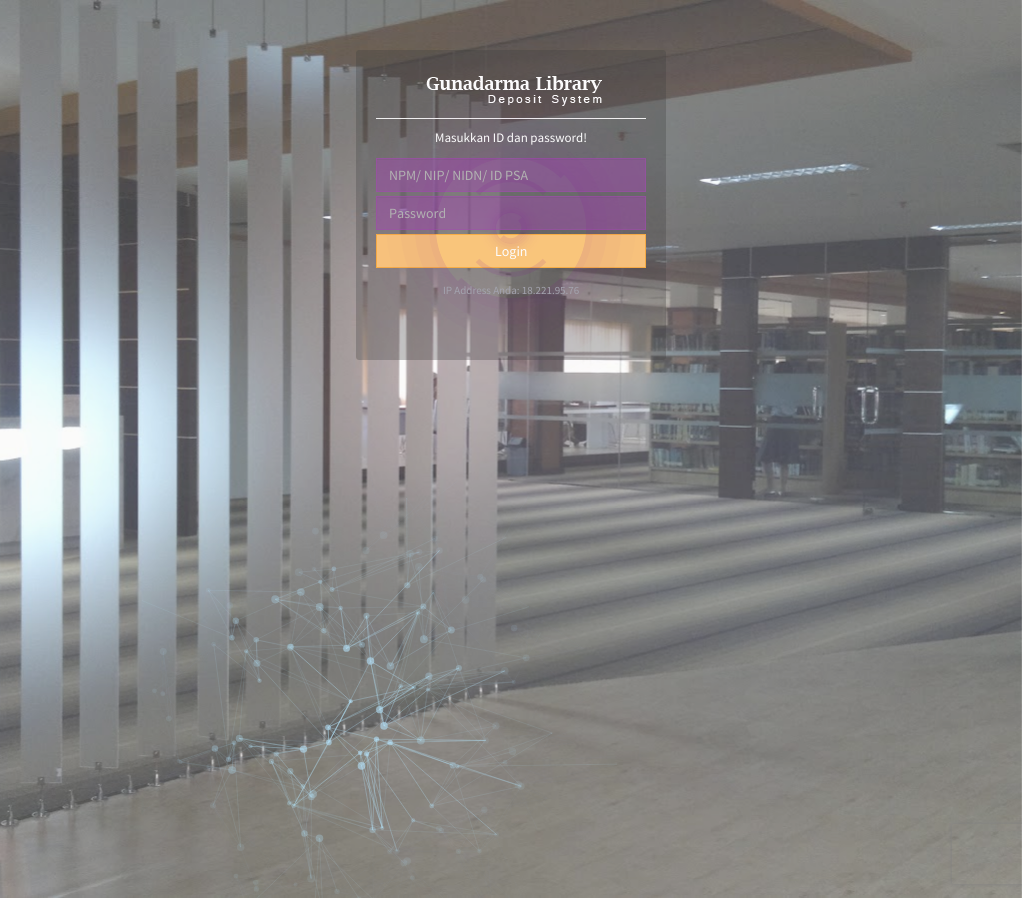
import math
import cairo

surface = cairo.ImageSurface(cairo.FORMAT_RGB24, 1022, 898)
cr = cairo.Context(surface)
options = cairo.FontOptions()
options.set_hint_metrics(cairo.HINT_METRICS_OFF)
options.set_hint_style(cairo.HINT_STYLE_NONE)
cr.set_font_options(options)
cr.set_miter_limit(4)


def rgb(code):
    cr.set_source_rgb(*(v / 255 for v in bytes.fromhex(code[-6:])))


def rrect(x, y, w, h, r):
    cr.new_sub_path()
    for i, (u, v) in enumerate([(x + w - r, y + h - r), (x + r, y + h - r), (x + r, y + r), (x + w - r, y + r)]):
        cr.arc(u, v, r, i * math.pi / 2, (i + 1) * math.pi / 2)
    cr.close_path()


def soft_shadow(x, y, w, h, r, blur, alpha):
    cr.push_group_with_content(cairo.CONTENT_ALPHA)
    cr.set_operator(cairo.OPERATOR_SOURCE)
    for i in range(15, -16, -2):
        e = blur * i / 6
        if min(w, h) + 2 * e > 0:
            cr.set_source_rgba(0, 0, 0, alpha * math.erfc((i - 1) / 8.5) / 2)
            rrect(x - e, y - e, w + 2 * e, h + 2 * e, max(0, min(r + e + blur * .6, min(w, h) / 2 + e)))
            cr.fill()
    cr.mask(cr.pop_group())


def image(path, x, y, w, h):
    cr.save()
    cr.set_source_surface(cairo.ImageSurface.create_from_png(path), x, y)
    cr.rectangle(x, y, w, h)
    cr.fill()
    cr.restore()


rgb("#ffffff")
cr.paint()
image("img/1.png", 0, 0, 1022, 898)
cr.set_source_rgba(0.247, 0.247, 0.247, 0.3)
rrect(356, 50, 310, 310, 3)
cr.fill()
image("img/2.png", 426, 76, 176, 30)
rgb("#f0f0f0")
cr.rectangle(376, 118, 270, 1)
cr.fill()
cr.set_source_rgba(0.627, 0.298, 0.682, 0.5)
cr.rectangle(376, 158, 270, 34)
cr.fill()
cr.set_source_rgba(0.247, 0.247, 0.247, 0.07)
cr.rectangle(377, 159, 268, 1)
cr.fill()
cr.rectangle(376.5, 158.5, 269, 33)
cr.set_source_rgba(0.627, 0.298, 0.682, 0.5)
cr.set_line_width(1)
cr.stroke()
cr.rectangle(376, 196, 270, 34)
cr.fill()
cr.set_source_rgba(0.247, 0.247, 0.247, 0.07)
cr.rectangle(377, 197, 268, 1)
cr.fill()
cr.rectangle(376.5, 196.5, 269, 33)
cr.set_source_rgba(0.627, 0.298, 0.682, 0.5)
cr.stroke()
rgb("#f9c57b")
cr.rectangle(376.5, 234.5, 269, 33)
cr.fill_preserve()
rgb("#f7ad44")
cr.stroke()
cr.save()
cr.set_fill_rule(cairo.FILL_RULE_EVEN_ODD)
cr.new_path()
cr.move_to(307, 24)
cr.line_to(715, 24)
cr.line_to(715, 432)
cr.line_to(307, 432)
cr.close_path()
cr.move_to(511, 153)
cr.curve_to(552.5, 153, 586, 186.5, 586, 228)
cr.curve_to(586, 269.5, 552.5, 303, 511, 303)
cr.curve_to(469.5, 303, 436, 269.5, 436, 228)
cr.curve_to(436, 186.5, 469.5, 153, 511, 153)
cr.close_path()
cr.clip()
rgb("#821195")
soft_shadow(436, 153, 150, 150, 75, 42.5, 0.23)
cr.restore()
cr.new_path()
cr.move_to(459.5, 176.5)
cr.curve_to(488, 148.5, 534, 148.5, 562.5, 176.5)
cr.set_source_rgba(0.51, 0.067, 0.584, 0.12)
cr.set_line_width(5)
cr.stroke()
cr.new_path()
cr.move_to(562.5, 279.5)
cr.curve_to(534, 307.5, 488, 307.5, 459.5, 279.5)
cr.stroke()
cr.new_path()
cr.move_to(477.5, 193.5)
cr.curve_to(495.5, 175, 526.5, 175, 544.5, 193.5)
cr.stroke()
cr.new_path()
cr.move_to(544.5, 260.5)
cr.curve_to(526.5, 279, 495.5, 279, 477.5, 260.5)
cr.stroke()
cr.save()
cr.set_fill_rule(cairo.FILL_RULE_EVEN_ODD)
cr.new_path()
cr.move_to(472, 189)
cr.line_to(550, 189)
cr.line_to(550, 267)
cr.line_to(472, 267)
cr.close_path()
cr.move_to(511, 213)
cr.curve_to(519.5, 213, 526, 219.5, 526, 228)
cr.curve_to(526, 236.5, 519.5, 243, 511, 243)
cr.curve_to(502.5, 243, 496, 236.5, 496, 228)
cr.curve_to(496, 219.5, 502.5, 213, 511, 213)
cr.close_path()
cr.clip()
rgb("#821195")
soft_shadow(496, 213, 30, 30, 15, 7.5, 0.23)
cr.restore()
cr.new_path()
cr.move_to(520, 219)
cr.curve_to(531.5, 231, 514, 248.5, 502, 237)
cr.stroke()
image("img/3.png", 142, 476, 475, 422)
cr.save()
cr.set_fill_rule(cairo.FILL_RULE_EVEN_ODD)
cr.new_path()
cr.move_to(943, 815)
cr.line_to(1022, 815)
cr.line_to(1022, 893)
cr.line_to(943, 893)
cr.close_path()
cr.move_to(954, 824)
cr.line_to(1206, 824)
cr.curve_to(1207, 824, 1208, 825, 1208, 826)
cr.line_to(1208, 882)
cr.curve_to(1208, 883, 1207, 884, 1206, 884)
cr.line_to(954, 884)
cr.curve_to(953, 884, 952, 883, 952, 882)
cr.line_to(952, 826)
cr.curve_to(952, 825, 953, 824, 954, 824)
cr.close_path()
cr.clip()
rgb("#808080")
soft_shadow(952, 824, 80, 60, 2, 2.5, 1)
cr.restore()
cr.select_font_face("Source Sans Pro")
cr.set_font_size(13)
rgb("#fcfcfc")
cr.move_to(435, 142)
cr.show_text("Masukkan ID dan password!")
cr.set_font_size(14)
rgb("#b1b1b1")
cr.move_to(389, 180)
cr.show_text("NPM/ NIP/ NIDN/ ID PSA")
cr.move_to(389, 218)
cr.show_text("Password")
rgb("#fcfcfc")
cr.move_to(495, 256)
cr.show_text("Login")
cr.set_font_size(11)
rgb("#a3a3ae")
cr.move_to(443, 294)
cr.show_text("IP Address Anda: 18.221.95.76")
surface.write_to_png("page.png")
